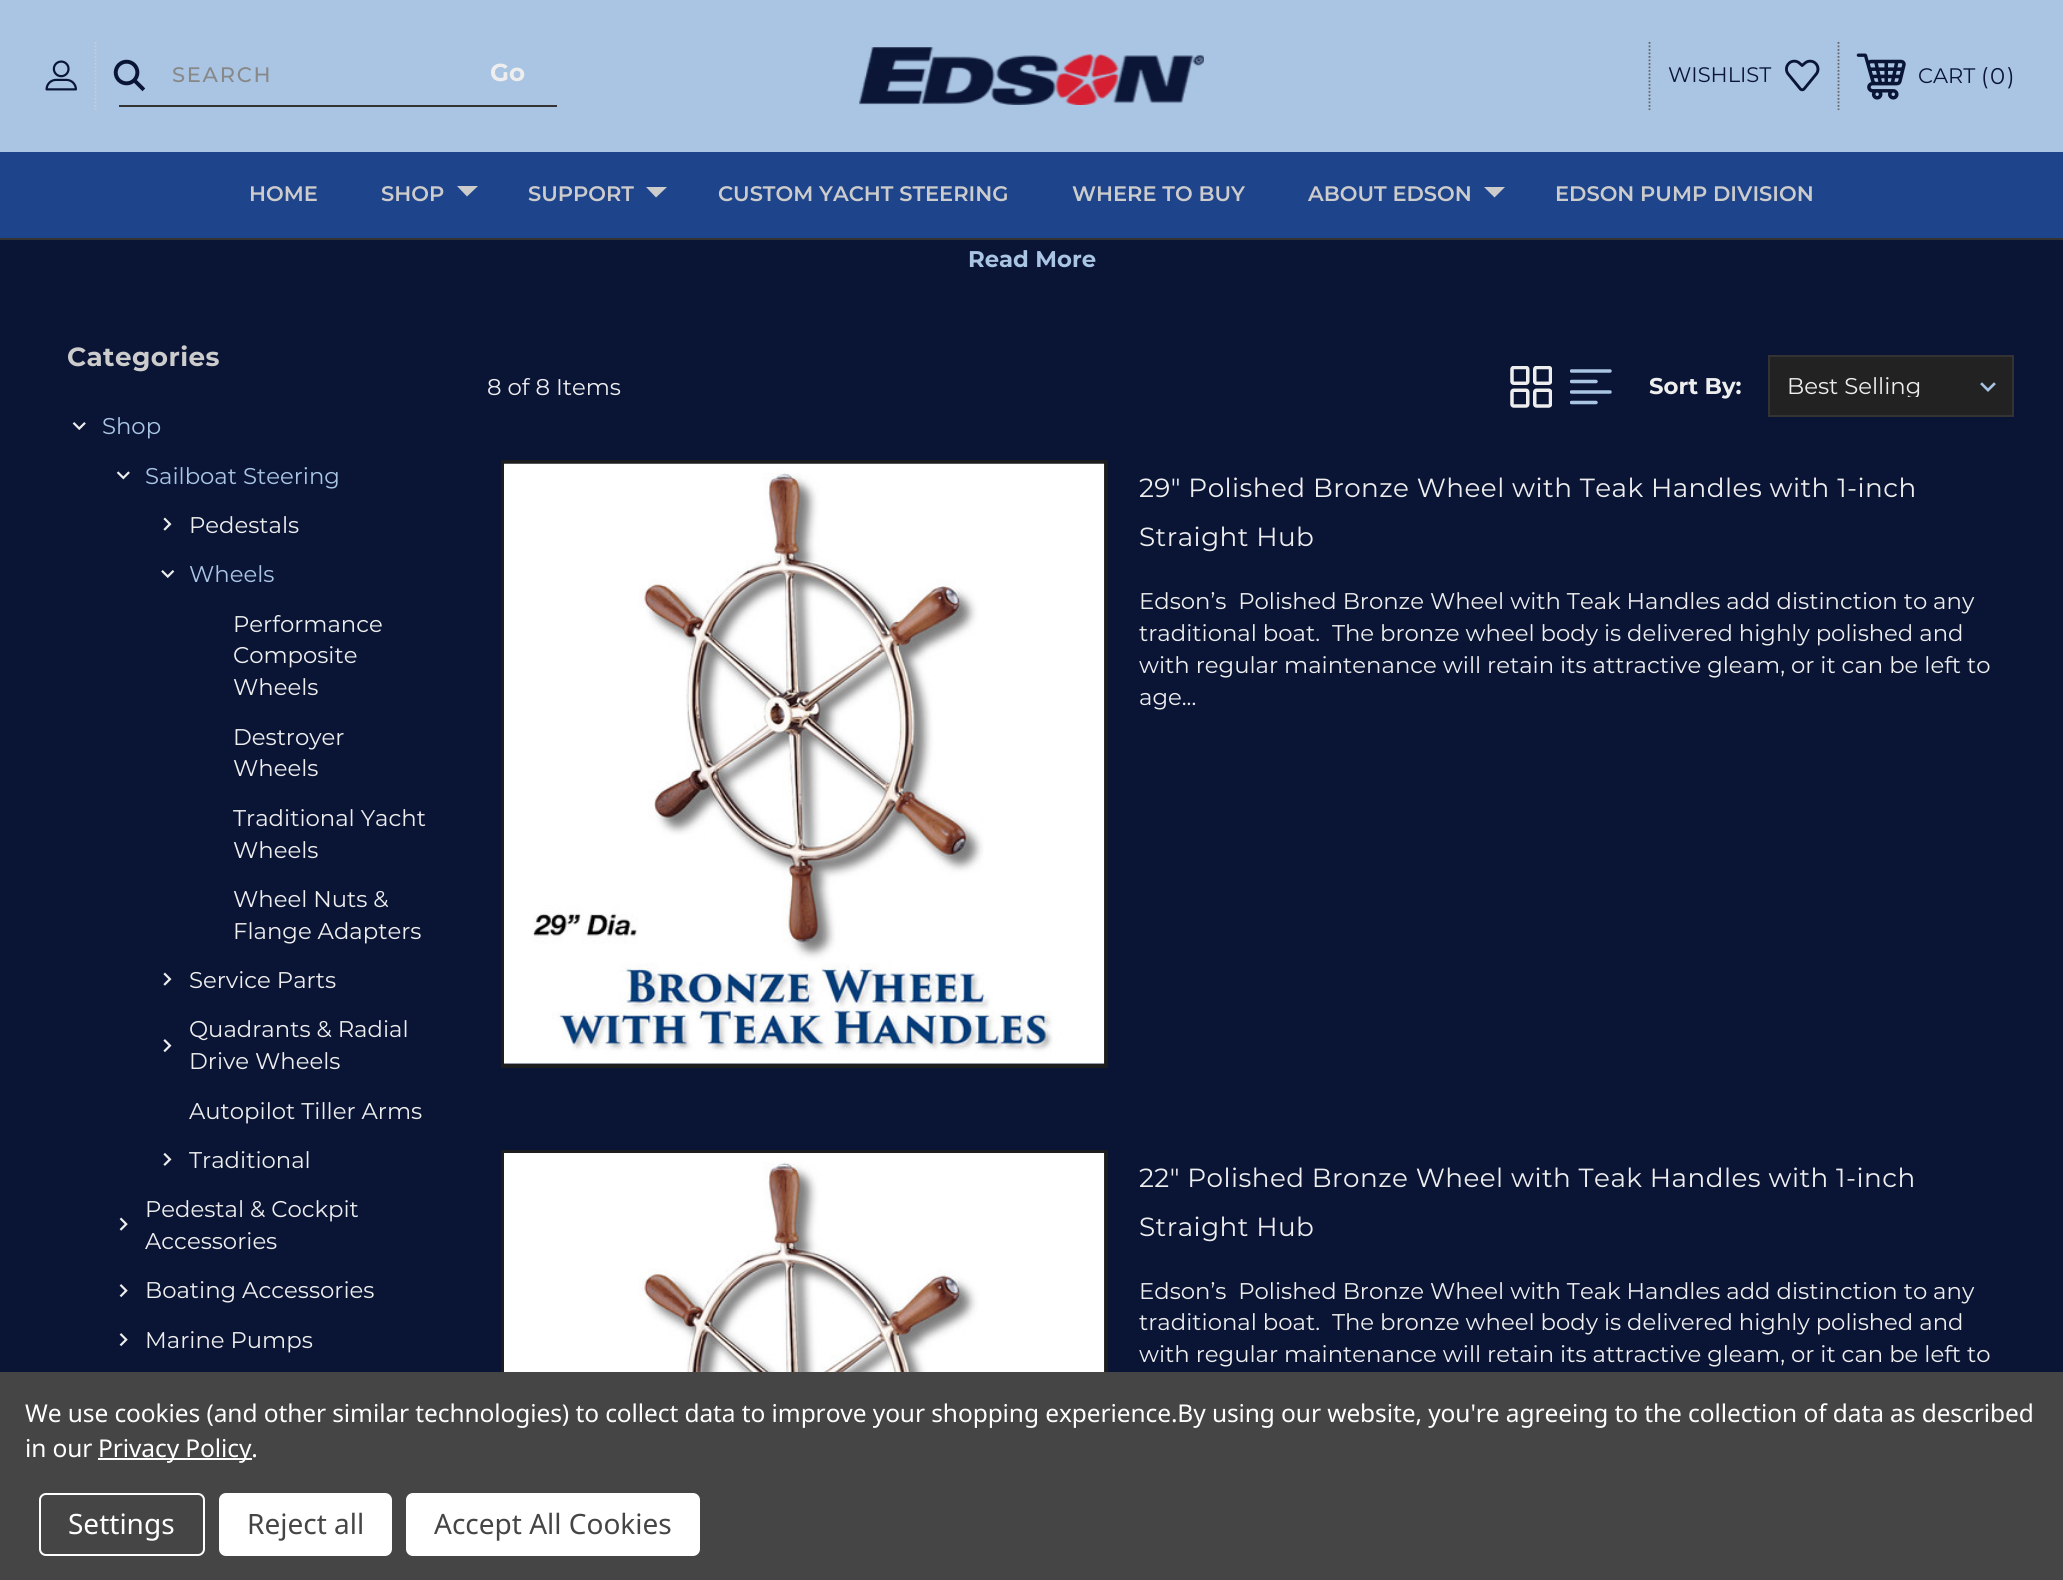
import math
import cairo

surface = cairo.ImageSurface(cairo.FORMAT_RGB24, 2063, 1580)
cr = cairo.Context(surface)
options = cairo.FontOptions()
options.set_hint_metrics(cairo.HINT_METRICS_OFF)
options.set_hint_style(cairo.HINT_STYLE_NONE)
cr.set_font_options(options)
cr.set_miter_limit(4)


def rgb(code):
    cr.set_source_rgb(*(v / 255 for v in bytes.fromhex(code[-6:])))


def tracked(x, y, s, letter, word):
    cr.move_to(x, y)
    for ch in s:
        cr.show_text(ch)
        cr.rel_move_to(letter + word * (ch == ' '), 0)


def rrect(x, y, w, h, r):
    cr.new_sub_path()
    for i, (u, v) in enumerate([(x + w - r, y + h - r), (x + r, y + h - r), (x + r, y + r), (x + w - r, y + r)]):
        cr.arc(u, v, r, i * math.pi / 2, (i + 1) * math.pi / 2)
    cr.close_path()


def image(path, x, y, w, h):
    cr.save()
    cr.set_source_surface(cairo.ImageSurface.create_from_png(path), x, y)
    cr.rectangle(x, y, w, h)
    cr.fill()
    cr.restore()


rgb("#0a1536")
cr.paint()
rgb("#a9c5e3")
cr.rectangle(0, 0, 2063, 152)
cr.fill()
rgb("#333333")
cr.rectangle(0, 238, 2063, 2)
cr.fill()
image("img/1.png", 45, 60, 32, 31)
cr.new_path()
cr.move_to(95.5, 42)
cr.line_to(95.5, 110)
rgb("#cccccc")
cr.set_line_width(1.8)
cr.set_dash([1.75, 1.75])
cr.stroke()
image("img/2.png", 113, 59, 33, 33)
rgb("#333333")
cr.rectangle(119, 105, 438, 2)
cr.fill()
image("img/3.png", 859, 47, 345, 58)
cr.new_path()
cr.move_to(1838.5, 42)
cr.line_to(1838.5, 110)
rgb("#666666")
cr.stroke()
cr.new_path()
cr.move_to(1649.5, 42)
cr.line_to(1649.5, 110)
cr.stroke()
image("img/4.png", 1785, 59, 35, 33)
image("img/5.png", 1856, 53, 50, 47)
rgb("#1e448b")
cr.rectangle(0, 152, 2063, 86)
cr.fill()
rgb("#cccccc")
cr.new_path()
cr.move_to(457, 186)
cr.line_to(467, 196.5)
cr.line_to(478, 186)
cr.close_path()
cr.fill()
cr.new_path()
cr.move_to(646, 187)
cr.line_to(656, 197.5)
cr.line_to(667, 187)
cr.close_path()
cr.fill()
cr.new_path()
cr.move_to(1484, 187)
cr.line_to(1494.5, 197.5)
cr.line_to(1505, 187)
cr.close_path()
cr.fill()
image("img/6.png", 72, 422, 14, 8)
image("img/7.png", 116, 471, 14, 9)
image("img/8.png", 163, 517, 9, 14)
image("img/9.png", 161, 570, 14, 8)
image("img/8.png", 163, 972, 9, 14)
image("img/10.png", 163, 1039, 9, 14)
image("img/11.png", 163, 1152, 9, 14)
image("img/12.png", 119, 1217, 9, 14)
image("img/13.png", 119, 1284, 9, 14)
image("img/13.png", 119, 1333, 9, 14)
image("img/14.png", 1510, 366, 42, 42)
image("img/15.png", 1570, 369, 42, 36)
rgb("#222222")
cr.rectangle(1770, 357, 242, 58)
cr.fill()
image("img/16.png", 1980, 382, 16, 10)
cr.rectangle(1769, 356, 244, 60)
rgb("#333333")
cr.set_line_width(2)
cr.set_dash([])
cr.stroke()
cr.rectangle(503, 462, 603, 604)
rgb("#1d1d1d")
cr.set_line_width(4)
cr.stroke()
image("img/17.png", 504, 463, 601, 601)
cr.rectangle(503, 1152, 603, 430)
cr.stroke()
image("img/18.png", 504, 1153, 601, 219)
rgb("#454545")
cr.rectangle(0, 1372, 2063, 208)
cr.fill()
rgb("#ffffff")
cr.rectangle(98, 1458, 154, 2)
cr.fill()
rrect(40, 1494, 164, 61, 6)
cr.set_line_width(2)
cr.stroke()
rrect(219, 1493, 173, 63, 7)
cr.fill()
rrect(406, 1493, 294, 63, 7)
cr.fill()
cr.select_font_face("Montserrat Medium")
cr.set_font_size(21)
rgb("#888888")
tracked(172, 82, "SEARCH", 1.75, 0)
cr.select_font_face("Montserrat", cairo.FONT_SLANT_NORMAL, cairo.FONT_WEIGHT_BOLD)
cr.set_font_size(24.5)
rgb("#eeeeee")
cr.move_to(490, 81)
cr.show_text("Go")
cr.select_font_face("Montserrat")
cr.set_font_size(21)
rgb("#0a1536")
cr.move_to(1668, 82)
cr.show_text("WISHLIST")
cr.move_to(1918, 83)
cr.show_text("CART")
cr.set_font_size(22.75)
for x, y, s in [
    (1981, 84, "("),
    (1990, 84, "0"),
    (2007, 84, ")"),
]:
    cr.move_to(x, y)
    cr.show_text(s)
cr.select_font_face("Montserrat SemiBold")
cr.set_font_size(21)
rgb("#cccccc")
for x, y, s in [
    (249, 201, "HOME"),
    (381, 201, "SHOP"),
    (528, 201, "SUPPORT"),
    (718, 201, "CUSTOM YACHT STEERING"),
    (1072, 201, "WHERE TO BUY"),
    (1308, 201, "ABOUT EDSON"),
    (1555, 201, "EDSON PUMP DIVISION"),
]:
    cr.move_to(x, y)
    cr.show_text(s)
cr.select_font_face("Montserrat", cairo.FONT_SLANT_NORMAL, cairo.FONT_WEIGHT_BOLD)
cr.set_font_size(22.75)
rgb("#a9c5e3")
cr.move_to(968, 267)
cr.show_text("Read More")
cr.set_font_size(26.25)
rgb("#cccccc")
tracked(67, 366, "Categories", 0.45, 0)
cr.select_font_face("Montserrat")
cr.set_font_size(22.75)
rgb("#a9c5e3")
cr.move_to(102, 434)
cr.show_text("Shop")
cr.move_to(145, 484)
cr.show_text("Sailboat Steering")
rgb("#eeeeee")
cr.move_to(189, 533)
cr.show_text("Pedestals")
rgb("#a9c5e3")
cr.move_to(189, 582)
cr.show_text("Wheels")
rgb("#eeeeee")
for x, y, s in [
    (233, 632, "Performance"),
    (233, 663, "Composite"),
    (233, 695, "Wheels"),
    (233, 745, "Destroyer"),
    (233, 776, "Wheels"),
    (233, 826, "Traditional Yacht"),
    (233, 858, "Wheels"),
    (233, 907, "Wheel Nuts &"),
    (233, 939, "Flange Adapters"),
    (189, 988, "Service Parts"),
    (189, 1037, "Quadrants & Radial"),
    (189, 1069, "Drive Wheels"),
    (189, 1119, "Autopilot Tiller Arms"),
    (189, 1168, "Traditional"),
    (145, 1217, "Pedestal & Cockpit"),
    (145, 1249, "Accessories"),
    (145, 1298, "Boating Accessories"),
    (145, 1348, "Marine Pumps"),
    (487, 395, "8 of 8 Items"),
]:
    cr.move_to(x, y)
    cr.show_text(s)
cr.select_font_face("Montserrat", cairo.FONT_SLANT_NORMAL, cairo.FONT_WEIGHT_BOLD)
cr.move_to(1649, 394)
cr.show_text("Sort By:")
cr.save()
cr.rectangle(1787, 375, 208, 22)
cr.clip()
cr.select_font_face("Montserrat")
cr.move_to(1787, 394)
cr.show_text("Best Selling")
cr.restore()
cr.select_font_face("Montserrat")
cr.set_font_size(26.25)
tracked(1139, 497, "29\" Polished Bronze Wheel with Teak Handles with 1-inch", 0.45, 0)
tracked(1139, 546, "Straight Hub", 0.45, 0)
cr.set_font_size(22.75)
for x, y, s in [
    (1139, 609, "Edson’s  Polished Bronze Wheel with Teak Handles add distinction to any"),
    (1139, 641, "traditional boat.  The bronze wheel body is delivered highly polished and"),
    (1139, 673, "with regular maintenance will retain its attractive gleam, or it can be left to"),
    (1139, 705, "age..."),
]:
    cr.move_to(x, y)
    cr.show_text(s)
cr.set_font_size(26.25)
tracked(1139, 1187, "22\" Polished Bronze Wheel with Teak Handles with 1-inch", 0.45, 0)
tracked(1139, 1236, "Straight Hub", 0.45, 0)
cr.set_font_size(22.75)
for x, y, s in [
    (1139, 1299, "Edson’s  Polished Bronze Wheel with Teak Handles add distinction to any"),
    (1139, 1330, "traditional boat.  The bronze wheel body is delivered highly polished and"),
    (1139, 1362, "with regular maintenance will retain its attractive gleam, or it can be left to"),
]:
    cr.move_to(x, y)
    cr.show_text(s)
cr.select_font_face("Noto Sans")
cr.set_font_size(24.5)
rgb("#ffffff")
for x, y, s in [
    (25, 1422, "We use cookies (and other similar technologies) to collect data to improve your shopping experience.By using our website, you're agreeing to the collection of data as described"),
    (25, 1457, "in our"),
    (98, 1457, "Privacy Policy."),
]:
    tracked(x, y, s, -0.09, 0)
cr.set_font_size(28)
cr.move_to(68, 1534)
cr.show_text("Settings")
rgb("#454545")
cr.move_to(247, 1534)
cr.show_text("Reject all")
cr.move_to(434, 1534)
cr.show_text("Accept All Cookies")
surface.write_to_png("page.png")
